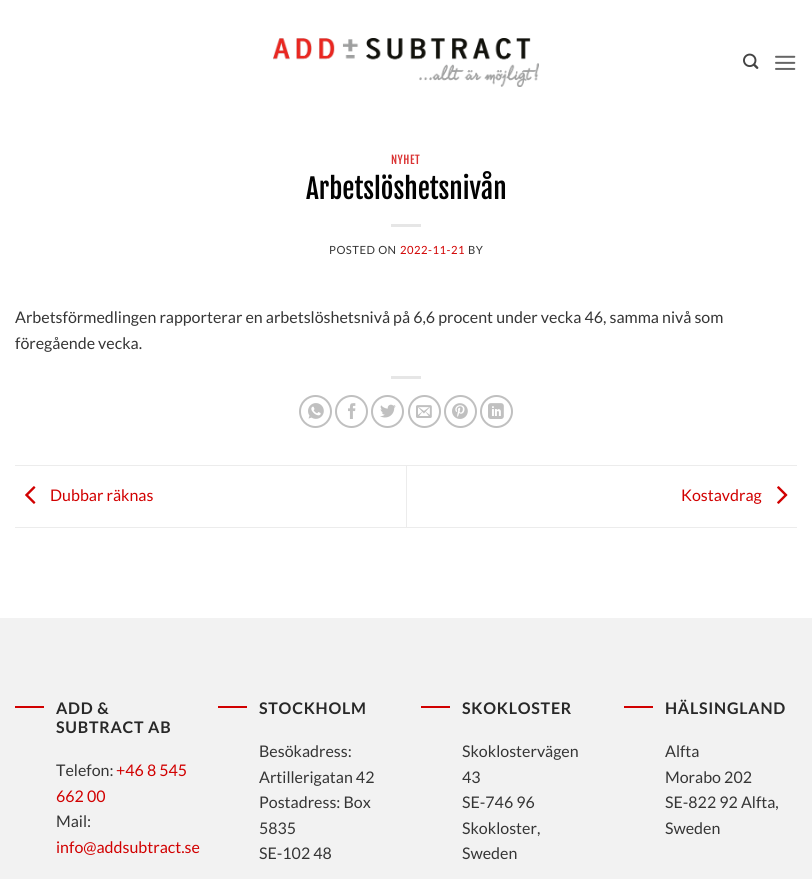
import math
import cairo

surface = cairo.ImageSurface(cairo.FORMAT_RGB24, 812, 879)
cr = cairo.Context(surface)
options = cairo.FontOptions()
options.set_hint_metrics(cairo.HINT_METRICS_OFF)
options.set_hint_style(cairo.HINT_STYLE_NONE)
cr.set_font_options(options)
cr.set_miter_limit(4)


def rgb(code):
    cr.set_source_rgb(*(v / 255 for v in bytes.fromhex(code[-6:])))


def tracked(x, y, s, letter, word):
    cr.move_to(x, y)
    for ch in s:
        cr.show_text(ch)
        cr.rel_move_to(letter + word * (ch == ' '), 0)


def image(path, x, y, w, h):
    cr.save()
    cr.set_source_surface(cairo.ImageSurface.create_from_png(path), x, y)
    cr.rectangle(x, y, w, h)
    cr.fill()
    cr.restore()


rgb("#ffffff")
cr.paint()
image("img/1.png", 273, 38, 266, 49)
image("img/2.png", 743, 53, 16, 16)
image("img/3.png", 775, 55, 21, 15)
rgb("#e6e6e6")
cr.rectangle(391, 224, 30, 3)
cr.fill()
cr.rectangle(391, 376, 30, 3)
cr.fill()
cr.arc(315.5, 411.5, 15.5, 0, 2 * math.pi)
rgb("#c0c0c0")
cr.stroke()
image("img/4.png", 308, 403, 16, 16)
cr.arc(351.5, 411.5, 15.5, 0, 2 * math.pi)
cr.stroke()
image("img/5.png", 348, 403, 8, 16)
cr.arc(387.5, 411.5, 15.5, 0, 2 * math.pi)
cr.stroke()
image("img/6.png", 380, 404, 16, 14)
cr.arc(424.5, 411.5, 15.5, 0, 2 * math.pi)
cr.stroke()
image("img/7.png", 416, 405, 16, 13)
cr.arc(460.5, 411.5, 15.5, 0, 2 * math.pi)
cr.stroke()
image("img/8.png", 452, 403, 16, 16)
cr.arc(496.5, 411.5, 15.5, 0, 2 * math.pi)
cr.stroke()
image("img/9.png", 488, 403, 16, 16)
rgb("#ececec")
cr.rectangle(15, 465, 782, 1)
cr.fill()
cr.rectangle(15, 527, 782, 1)
cr.fill()
image("img/10.png", 25, 486, 11, 18)
cr.rectangle(406, 466, 1, 61)
cr.fill()
image("img/11.png", 777, 486, 11, 18)
for x, y, w, h, color in [
    (0, 618, 812, 261, "#f2f2f2"),
    (15, 706, 29, 2, "#d10000"),
    (218, 706, 29, 2, "#d10000"),
    (421, 706, 29, 2, "#d10000"),
    (624, 706, 29, 2, "#d10000"),
]:
    rgb(color)
    cr.rectangle(x, y, w, h)
    cr.fill()
cr.select_font_face("Fjalla One")
cr.set_font_size(11.25)
rgb("#da3333")
tracked(391, 164, "NYHET", 0.5, 0)
cr.set_font_size(27.25)
rgb("#020202")
cr.move_to(306, 199)
cr.show_text("Arbetslöshetsnivån")
cr.select_font_face("Lato")
cr.set_font_size(11.25)
rgb("#353535")
tracked(329, 254, "POSTED ON", 0.5, 0)
rgb("#d10000")
tracked(400, 254, "2022-11-21", 0.5, 0)
rgb("#353535")
tracked(468, 254, "BY", 0.5, 0)
cr.set_font_size(16)
cr.move_to(15, 323)
cr.show_text("Arbetsförmedlingen rapporterar en arbetslöshetsnivå på 6,6 procent under vecka 46, samma nivå som")
cr.move_to(15, 349)
cr.show_text("föregående vecka.")
rgb("#d10000")
cr.move_to(50, 501)
cr.show_text("Dubbar räknas")
cr.move_to(681, 501)
cr.show_text("Kostavdrag")
cr.select_font_face("Lato", cairo.FONT_SLANT_NORMAL, cairo.FONT_WEIGHT_BOLD)
rgb("#282828")
tracked(56, 714, "ADD &", 0.75, 0)
tracked(56, 733, "SUBTRACT AB", 0.75, 0)
cr.select_font_face("Lato")
rgb("#353535")
cr.move_to(56, 776)
cr.show_text("Telefon:")
rgb("#d10000")
cr.move_to(116, 776)
cr.show_text("+46 8 545")
cr.move_to(56, 802)
cr.show_text("662 00")
rgb("#353535")
cr.move_to(56, 827)
cr.show_text("Mail:")
rgb("#d10000")
cr.move_to(56, 853)
cr.show_text("info@addsubtract.se")
cr.select_font_face("Lato", cairo.FONT_SLANT_NORMAL, cairo.FONT_WEIGHT_BOLD)
rgb("#282828")
tracked(259, 714, "STOCKHOLM", 0.75, 0)
cr.select_font_face("Lato")
rgb("#353535")
for x, y, s in [
    (259, 757, "Besökadress:"),
    (259, 783, "Artillerigatan 42"),
    (259, 808, "Postadress: Box"),
    (259, 834, "5835"),
    (259, 859, "SE-102 48"),
]:
    cr.move_to(x, y)
    cr.show_text(s)
cr.select_font_face("Lato", cairo.FONT_SLANT_NORMAL, cairo.FONT_WEIGHT_BOLD)
rgb("#282828")
tracked(462, 714, "SKOKLOSTER", 0.75, 0)
cr.select_font_face("Lato")
rgb("#353535")
for x, y, s in [
    (462, 757, "Skoklostervägen"),
    (462, 783, "43"),
    (462, 808, "SE-746 96"),
    (462, 834, "Skokloster,"),
    (462, 859, "Sweden"),
]:
    cr.move_to(x, y)
    cr.show_text(s)
cr.select_font_face("Lato", cairo.FONT_SLANT_NORMAL, cairo.FONT_WEIGHT_BOLD)
rgb("#282828")
tracked(665, 714, "HÄLSINGLAND", 0.75, 0)
cr.select_font_face("Lato")
rgb("#353535")
for x, y, s in [
    (665, 757, "Alfta"),
    (665, 783, "Morabo 202"),
    (665, 808, "SE-822 92 Alfta,"),
    (665, 834, "Sweden"),
]:
    cr.move_to(x, y)
    cr.show_text(s)
surface.write_to_png("page.png")
